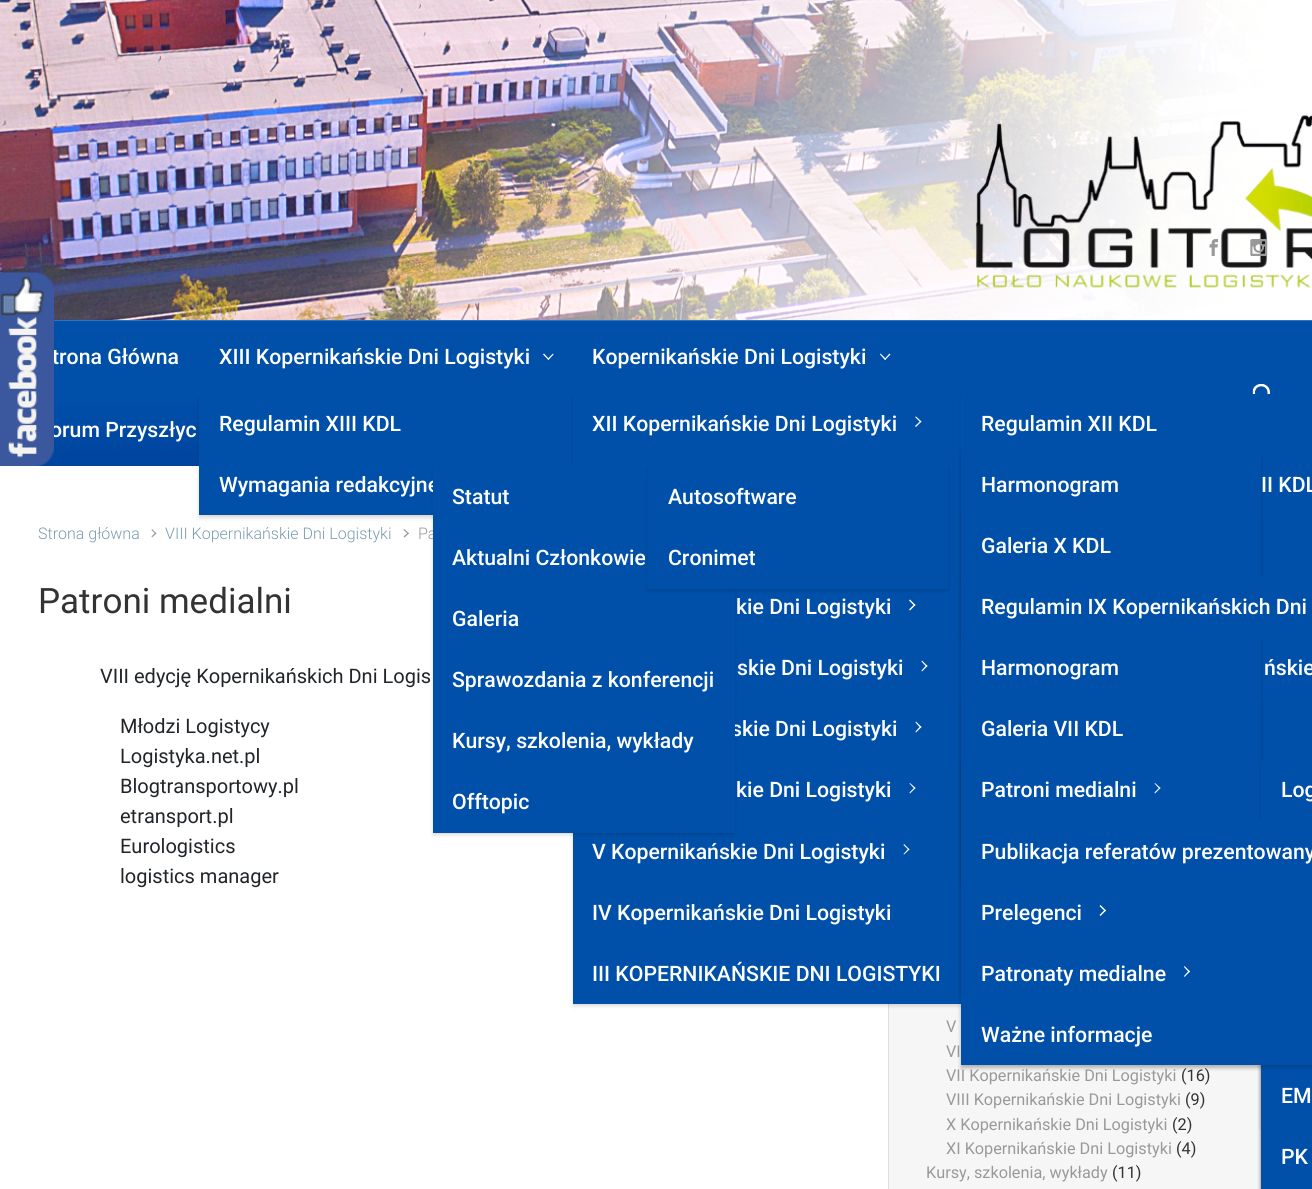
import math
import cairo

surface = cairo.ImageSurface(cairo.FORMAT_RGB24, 1312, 1189)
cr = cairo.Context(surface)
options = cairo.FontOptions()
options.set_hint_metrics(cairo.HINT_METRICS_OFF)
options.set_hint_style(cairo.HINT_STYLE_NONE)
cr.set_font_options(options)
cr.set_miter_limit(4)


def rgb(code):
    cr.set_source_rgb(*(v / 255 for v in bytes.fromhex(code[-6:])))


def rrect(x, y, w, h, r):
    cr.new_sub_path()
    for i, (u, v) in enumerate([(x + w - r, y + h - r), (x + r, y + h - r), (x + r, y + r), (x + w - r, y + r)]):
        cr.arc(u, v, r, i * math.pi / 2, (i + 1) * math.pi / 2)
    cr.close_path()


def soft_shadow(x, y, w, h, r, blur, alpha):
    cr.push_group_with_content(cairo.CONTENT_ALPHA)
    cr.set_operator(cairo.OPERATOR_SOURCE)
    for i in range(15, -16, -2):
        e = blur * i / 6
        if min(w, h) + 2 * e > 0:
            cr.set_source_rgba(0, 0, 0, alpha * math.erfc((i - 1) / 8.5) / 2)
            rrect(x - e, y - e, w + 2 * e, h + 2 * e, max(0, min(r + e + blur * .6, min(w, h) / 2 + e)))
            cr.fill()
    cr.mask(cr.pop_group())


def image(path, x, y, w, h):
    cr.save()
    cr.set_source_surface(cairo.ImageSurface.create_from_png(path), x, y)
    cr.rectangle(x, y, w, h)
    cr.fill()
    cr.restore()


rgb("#ffffff")
cr.paint()
image("img/2.png", 0, 0, 1312, 320)
image("img/3.png", 1209, 239, 9, 17)
image("img/4.png", 1250, 239, 18, 17)
gradient = cairo.LinearGradient(656, 320, 656, 466)
gradient.add_color_stop_rgba(0.5, 0, 0.314, 0.667, 1)
gradient.add_color_stop_rgba(1, 0, 0.267, 0.62, 1)
cr.set_source(gradient)
cr.rectangle(36, 321, 1276, 145)
cr.fill()
rgb("#3373bb")
cr.rectangle(54, 320, 1258, 1)
cr.fill()
rgb("#ffffff")
cr.new_path()
cr.move_to(553, 353.5)
cr.line_to(553.5, 354.5)
cr.line_to(548.5, 360)
cr.line_to(547.5, 359)
cr.close_path()
cr.fill()
cr.new_path()
cr.move_to(544, 353.5)
cr.line_to(549, 359)
cr.line_to(548.5, 360)
cr.line_to(543, 354.5)
cr.close_path()
cr.fill()
rgb("#000000")
soft_shadow(199, 396, 476, 122, 0, 2, 0.15)
rgb("#0050aa")
cr.rectangle(199, 394, 374, 121)
cr.fill()
rgb("#ffffff")
cr.new_path()
cr.move_to(889.5, 353.5)
cr.line_to(890.5, 354.5)
cr.line_to(885, 360)
cr.line_to(884.5, 359)
cr.close_path()
cr.fill()
cr.new_path()
cr.move_to(880.5, 353.5)
cr.line_to(886, 359)
cr.line_to(885, 360)
cr.line_to(880, 354.5)
cr.close_path()
cr.fill()
rgb("#f6f6f6")
cr.rectangle(889, 1004, 372, 185)
cr.fill()
cr.rectangle(888.5, 758.5, 386, 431)
rgb("#e0dddd")
cr.set_line_width(1)
cr.stroke()
rgb("#000000")
soft_shadow(573, 396, 388, 610, 0, 2, 0.15)
rgb("#0050aa")
cr.rectangle(573, 394, 388, 610)
cr.fill()
rgb("#ffffff")
cr.new_path()
cr.move_to(915, 417)
cr.line_to(916, 416.5)
cr.line_to(921.5, 421.5)
cr.line_to(920.5, 422.5)
cr.close_path()
cr.fill()
cr.new_path()
cr.move_to(915, 426)
cr.line_to(920.5, 421)
cr.line_to(921.5, 421.5)
cr.line_to(916, 427)
cr.close_path()
cr.fill()
image("img/5.png", 1252, 384, 18, 10)
rgb("#000000")
soft_shadow(961, 396, 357, 244, 0, 2, 0.15)
rgb("#0050aa")
cr.rectangle(961, 394, 351, 182)
cr.fill()
rgb("#000000")
soft_shadow(961, 456, 300, 184, 0, 2, 0.15)
rgb("#0050aa")
cr.rectangle(961, 454, 300, 61)
cr.fill()
rgb("#000000")
soft_shadow(961, 518, 300, 61, 0, 2, 0.15)
rgb("#0050aa")
cr.rectangle(961, 515, 300, 61)
cr.fill()
rgb("#ffffff")
cr.new_path()
cr.move_to(909, 600.5)
cr.line_to(910, 599.5)
cr.line_to(915.5, 605)
cr.line_to(914.5, 606)
cr.close_path()
cr.fill()
cr.new_path()
cr.move_to(909, 609.5)
cr.line_to(914.5, 604)
cr.line_to(915.5, 605)
cr.line_to(910, 610.5)
cr.close_path()
cr.fill()
rgb("#000000")
soft_shadow(961, 579, 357, 245, 0, 2, 0.15)
rgb("#0050aa")
cr.rectangle(961, 576, 351, 184)
cr.fill()
rgb("#ffffff")
cr.new_path()
cr.move_to(921.5, 661.5)
cr.line_to(922, 660.5)
cr.line_to(927.5, 666)
cr.line_to(926.5, 667)
cr.close_path()
cr.fill()
cr.new_path()
cr.move_to(921.5, 670.5)
cr.line_to(926.5, 665)
cr.line_to(927.5, 666)
cr.line_to(922, 671.5)
cr.close_path()
cr.fill()
rgb("#000000")
soft_shadow(961, 640, 300, 245, 0, 2, 0.15)
rgb("#0050aa")
cr.rectangle(961, 638, 300, 61)
cr.fill()
rgb("#000000")
soft_shadow(1261, 824, 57, 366, 0, 2, 0.15)
rgb("#ffffff")
cr.new_path()
cr.move_to(915.5, 722.5)
cr.line_to(916, 721.5)
cr.line_to(921.5, 727)
cr.line_to(920.5, 728)
cr.close_path()
cr.fill()
cr.new_path()
cr.move_to(915.5, 731.5)
cr.line_to(920.5, 726)
cr.line_to(921.5, 727)
cr.line_to(916, 732.5)
cr.close_path()
cr.fill()
rgb("#000000")
soft_shadow(961, 701, 300, 367, 0, 2, 0.15)
rgb("#0050aa")
cr.rectangle(961, 699, 300, 61)
cr.fill()
rgb("#000000")
soft_shadow(1261, 885, 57, 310, 0, 2, 0.15)
soft_shadow(1261, 945, 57, 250, 0, 2, 0.15)
rgb("#ffffff")
cr.new_path()
cr.move_to(909.5, 783.5)
cr.line_to(910, 783)
cr.line_to(915.5, 788)
cr.line_to(914.5, 789)
cr.close_path()
cr.fill()
cr.new_path()
cr.move_to(909.5, 792.5)
cr.line_to(914.5, 787.5)
cr.line_to(915.5, 788)
cr.line_to(910, 793.5)
cr.close_path()
cr.fill()
rgb("#000000")
soft_shadow(961, 763, 300, 228, 0, 2, 0.15)
rgb("#0050aa")
cr.rectangle(961, 760, 300, 61)
cr.fill()
rgb("#ffffff")
cr.new_path()
cr.move_to(1154.5, 783.5)
cr.line_to(1155, 783)
cr.line_to(1160.5, 788)
cr.line_to(1159.5, 789)
cr.close_path()
cr.fill()
cr.new_path()
cr.move_to(1154.5, 792.5)
cr.line_to(1159.5, 787.5)
cr.line_to(1160.5, 788)
cr.line_to(1155, 793.5)
cr.close_path()
cr.fill()
rgb("#000000")
soft_shadow(1261, 763, 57, 366, 0, 2, 0.15)
rgb("#0050aa")
cr.rectangle(1261, 760, 51, 61)
cr.fill()
rgb("#000000")
soft_shadow(1261, 824, 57, 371, 0, 2, 0.15)
rgb("#0050aa")
cr.rectangle(1261, 1065, 51, 124)
cr.fill()
rgb("#ffffff")
cr.new_path()
cr.move_to(903.5, 845)
cr.line_to(904, 844)
cr.line_to(909.5, 849.5)
cr.line_to(908.5, 850)
cr.close_path()
cr.fill()
cr.new_path()
cr.move_to(903.5, 854)
cr.line_to(908.5, 848.5)
cr.line_to(909.5, 849.5)
cr.line_to(904, 854.5)
cr.close_path()
cr.fill()
rgb("#000000")
soft_shadow(961, 824, 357, 244, 0, 2, 0.15)
rgb("#0050aa")
cr.rectangle(961, 821, 351, 244)
cr.fill()
rgb("#ffffff")
cr.new_path()
cr.move_to(1099.5, 906)
cr.line_to(1100.5, 905)
cr.line_to(1106, 910.5)
cr.line_to(1105, 911.5)
cr.close_path()
cr.fill()
cr.new_path()
cr.move_to(1099.5, 915)
cr.line_to(1105, 909.5)
cr.line_to(1106, 910.5)
cr.line_to(1100.5, 916)
cr.close_path()
cr.fill()
cr.new_path()
cr.move_to(1184, 967)
cr.line_to(1184.5, 966)
cr.line_to(1190, 971.5)
cr.line_to(1189, 972.5)
cr.close_path()
cr.fill()
cr.new_path()
cr.move_to(1184, 976)
cr.line_to(1189, 970.5)
cr.line_to(1190, 971.5)
cr.line_to(1184.5, 977)
cr.close_path()
cr.fill()
rgb("#000000")
soft_shadow(433, 469, 302, 366, 0, 2, 0.15)
rgb("#999999")
cr.new_path()
cr.move_to(151.5, 530)
cr.line_to(152, 529)
cr.line_to(156.5, 533.5)
cr.line_to(155.5, 534)
cr.close_path()
cr.fill()
cr.new_path()
cr.move_to(151.5, 536.5)
cr.line_to(155.5, 532.5)
cr.line_to(156.5, 533.5)
cr.line_to(152, 537.5)
cr.close_path()
cr.fill()
cr.new_path()
cr.move_to(403.5, 530)
cr.line_to(404.5, 529)
cr.line_to(409, 533.5)
cr.line_to(408, 534)
cr.close_path()
cr.fill()
cr.new_path()
cr.move_to(403.5, 536.5)
cr.line_to(408, 532.5)
cr.line_to(409, 533.5)
cr.line_to(404.5, 537.5)
cr.close_path()
cr.fill()
cr.select_font_face("Roboto Medium")
cr.set_font_size(21.25)
rgb("#ffffff")
for x, y, s in [
    (52, 364, "trona Główna"),
    (219, 364, "XIII Kopernikańskie Dni Logistyki"),
    (219, 431, "Regulamin XIII KDL"),
    (219, 492, "Wymagania redakcyjne"),
    (592, 364, "Kopernikańskie Dni Logistyki"),
    (592, 431, "XII Kopernikańskie Dni Logistyki"),
    (981, 431, "Regulamin XII KDL"),
    (1261, 492, "II KDL"),
    (981, 492, "Harmonogram"),
    (981, 553, "Galeria X KDL"),
    (736, 614, "kie Dni Logistyki"),
    (981, 614, "Regulamin IX Kopernikańskich Dni"),
    (1264, 675, "ńskie"),
    (737, 675, "skie Dni Logistyki"),
    (981, 675, "Harmonogram"),
    (731, 736, "skie Dni Logistyki"),
    (981, 736, "Galeria VII KDL"),
    (736, 797, "kie Dni Logistyki"),
    (981, 797, "Patroni medialni"),
    (1281, 797, "Log"),
    (1281, 1103, "EM"),
    (1281, 1164, "PK"),
    (592, 859, "V Kopernikańskie Dni Logistyki"),
    (981, 859, "Publikacja referatów prezentowany"),
    (981, 920, "Prelegenci"),
    (981, 981, "Patronaty medialne"),
    (981, 1042, "Ważne informacje"),
    (592, 920, "IV Kopernikańskie Dni Logistyki"),
    (592, 981, "III KOPERNIKAŃSKIE DNI LOGISTYKI"),
    (50, 437, "orum Przyszłyc"),
]:
    cr.move_to(x, y)
    cr.show_text(s)
image("img/1.png", 0, 272, 54, 194)
cr.select_font_face("Roboto Light")
cr.set_font_size(16)
rgb("#7a9cad")
cr.move_to(38, 539)
cr.show_text("Strona główna")
cr.move_to(165, 539)
cr.show_text("VIII Kopernikańskie Dni Logistyki")
rgb("#999999")
cr.move_to(418, 539)
cr.show_text("Pa")
rgb("#0050aa")
cr.rectangle(433, 466, 302, 367)
cr.fill()
rgb("#000000")
soft_shadow(648, 469, 300, 122, 0, 2, 0.15)
rgb("#0050aa")
cr.rectangle(648, 466, 300, 123)
cr.fill()
cr.select_font_face("Roboto Medium")
cr.set_font_size(21.25)
rgb("#ffffff")
for x, y, s in [
    (668, 565, "Cronimet"),
    (668, 504, "Autosoftware"),
    (452, 809, "Offtopic"),
    (452, 748, "Kursy, szkolenia, wykłady"),
    (452, 687, "Sprawozdania z konferencji"),
    (452, 626, "Galeria"),
    (452, 565, "Aktualni Członkowie"),
    (452, 504, "Statut"),
]:
    cr.move_to(x, y)
    cr.show_text(s)
cr.select_font_face("Roboto")
cr.set_font_size(35)
rgb("#333333")
cr.move_to(38, 613)
cr.show_text("Patroni medialni")
cr.set_font_size(20)
rgb("#212529")
for x, y, s in [
    (100, 683, "VIII edycję Kopernikańskich Dni Logis"),
    (120, 733, "Młodzi Logistycy"),
    (120, 763, "Logistyka.net.pl"),
    (120, 793, "Blogtransportowy.pl"),
    (120, 823, "etransport.pl"),
    (120, 853, "Eurologistics"),
    (120, 883, "logistics manager"),
]:
    cr.move_to(x, y)
    cr.show_text(s)
cr.set_font_size(16.25)
rgb("#999999")
for x, y, s in [
    (946, 1032, "V"),
    (946, 1057, "VI"),
    (946, 1081, "VII Kopernikańskie Dni Logistyki"),
]:
    cr.move_to(x, y)
    cr.show_text(s)
rgb("#333333")
cr.move_to(1181, 1081)
cr.show_text("(16)")
rgb("#999999")
cr.move_to(946, 1105)
cr.show_text("VIII Kopernikańskie Dni Logistyki")
rgb("#333333")
cr.move_to(1185, 1105)
cr.show_text("(9)")
rgb("#999999")
cr.move_to(946, 1130)
cr.show_text("X Kopernikańskie Dni Logistyki")
rgb("#333333")
cr.move_to(1172, 1130)
cr.show_text("(2)")
rgb("#999999")
cr.move_to(946, 1154)
cr.show_text("XI Kopernikańskie Dni Logistyki")
rgb("#333333")
cr.move_to(1176, 1154)
cr.show_text("(4)")
rgb("#999999")
cr.move_to(926, 1178)
cr.show_text("Kursy, szkolenia, wykłady")
rgb("#333333")
cr.move_to(1112, 1178)
cr.show_text("(11)")
surface.write_to_png("page.png")
